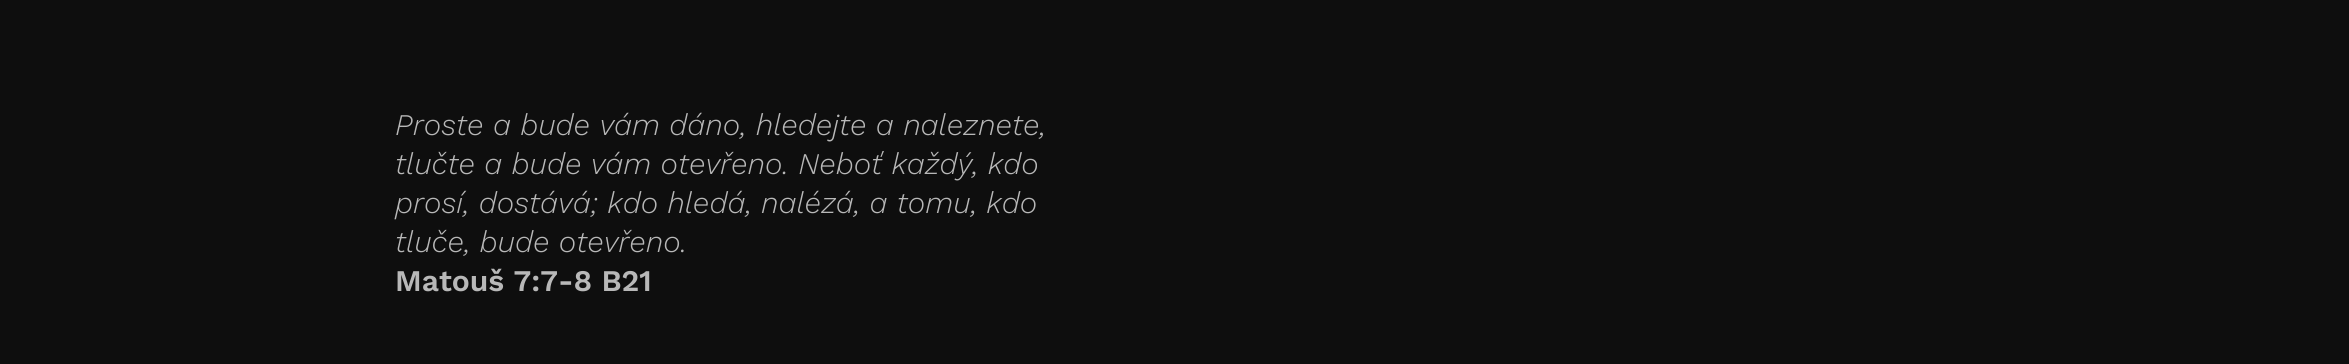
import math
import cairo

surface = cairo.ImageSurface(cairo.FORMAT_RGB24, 2349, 364)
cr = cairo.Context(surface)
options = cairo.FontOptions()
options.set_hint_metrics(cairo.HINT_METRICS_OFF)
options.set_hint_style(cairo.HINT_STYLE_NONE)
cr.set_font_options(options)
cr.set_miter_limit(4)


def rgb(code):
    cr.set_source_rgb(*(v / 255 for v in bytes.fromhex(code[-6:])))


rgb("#0e0e0e")
cr.paint()
cr.select_font_face("Work Sans Light", cairo.FONT_SLANT_ITALIC)
cr.set_font_size(30)
rgb("#b8b8b8")
for x, y, s in [
    (395, 135, "Proste a bude vám dáno, hledejte a naleznete,"),
    (395, 174, "tlučte a bude vám otevřeno. Neboť každý, kdo"),
    (395, 213, "prosí, dostává; kdo hledá, nalézá, a tomu, kdo"),
    (395, 252, "tluče, bude otevřeno."),
]:
    cr.move_to(x, y)
    cr.show_text(s)
cr.select_font_face("Work Sans SemiBold")
cr.move_to(395, 291)
cr.show_text("Matouš 7:7-8 B21")
surface.write_to_png("page.png")
